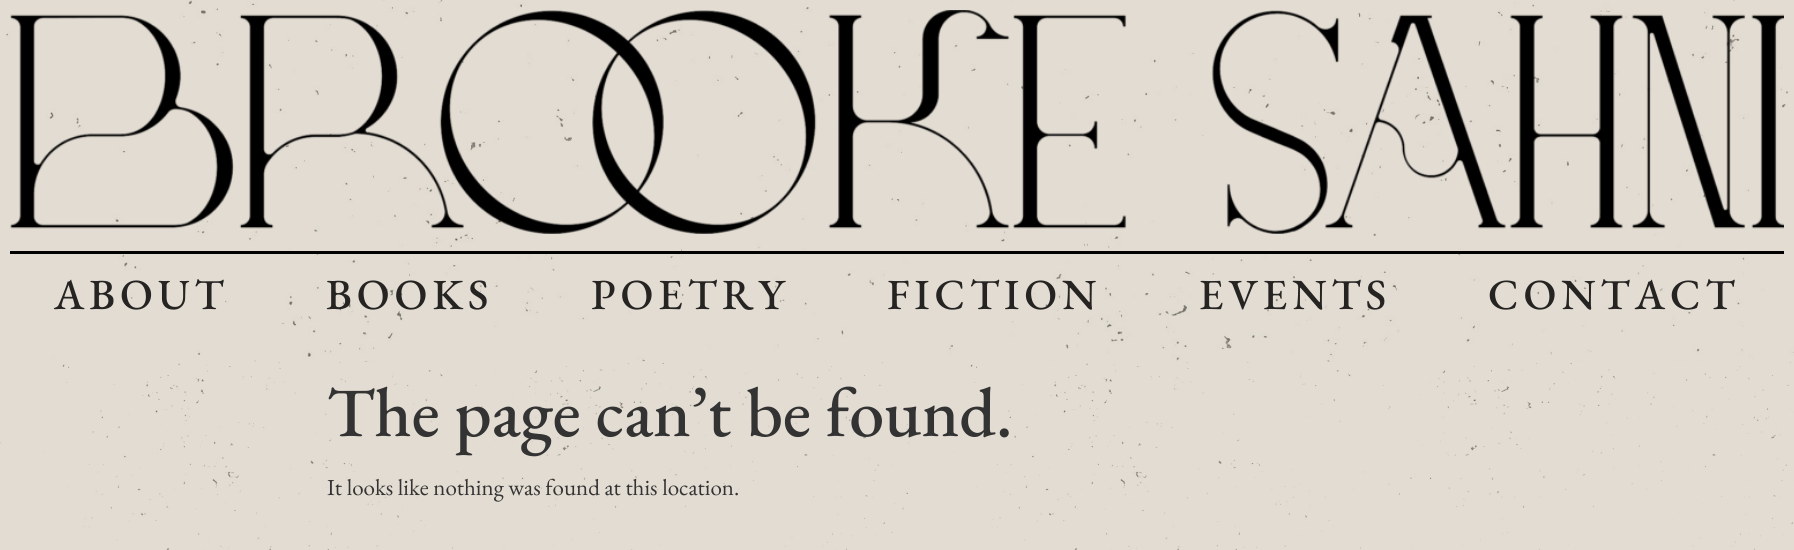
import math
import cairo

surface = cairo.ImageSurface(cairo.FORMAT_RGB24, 1794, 550)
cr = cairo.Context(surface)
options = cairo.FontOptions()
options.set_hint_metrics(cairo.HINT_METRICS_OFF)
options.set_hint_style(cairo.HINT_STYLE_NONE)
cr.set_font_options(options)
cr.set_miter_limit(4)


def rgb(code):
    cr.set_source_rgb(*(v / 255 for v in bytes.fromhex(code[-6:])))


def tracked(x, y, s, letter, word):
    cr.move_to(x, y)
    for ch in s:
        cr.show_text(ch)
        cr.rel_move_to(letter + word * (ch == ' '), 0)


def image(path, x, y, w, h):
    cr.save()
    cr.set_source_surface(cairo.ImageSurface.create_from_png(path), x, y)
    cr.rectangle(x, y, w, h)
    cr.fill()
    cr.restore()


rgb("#ffffff")
cr.paint()
image("img/1.png", 0, 0, 1794, 550)
image("img/2.png", 1, 0, 1793, 362)
image("img/3.png", 10, 10, 1774, 224)
rgb("#000000")
cr.rectangle(10, 251, 1774, 3)
cr.fill()
cr.select_font_face("EB Garamond Medium")
cr.set_font_size(43)
rgb("#252422")
for x, y, s in [
    (54, 309, "ABOUT"),
    (326, 309, "BOOKS"),
    (591, 309, "POETRY"),
    (887, 309, "FICTION"),
    (1199, 309, "EVENTS"),
    (1488, 309, "CONTACT"),
]:
    tracked(x, y, s, 5, 0)
cr.set_font_size(70)
rgb("#333333")
cr.move_to(327, 436)
cr.show_text("The page can’t be found.")
cr.select_font_face("EB Garamond")
cr.set_font_size(23)
cr.move_to(327, 495)
cr.show_text("It looks like nothing was found at this location.")
surface.write_to_png("page.png")
